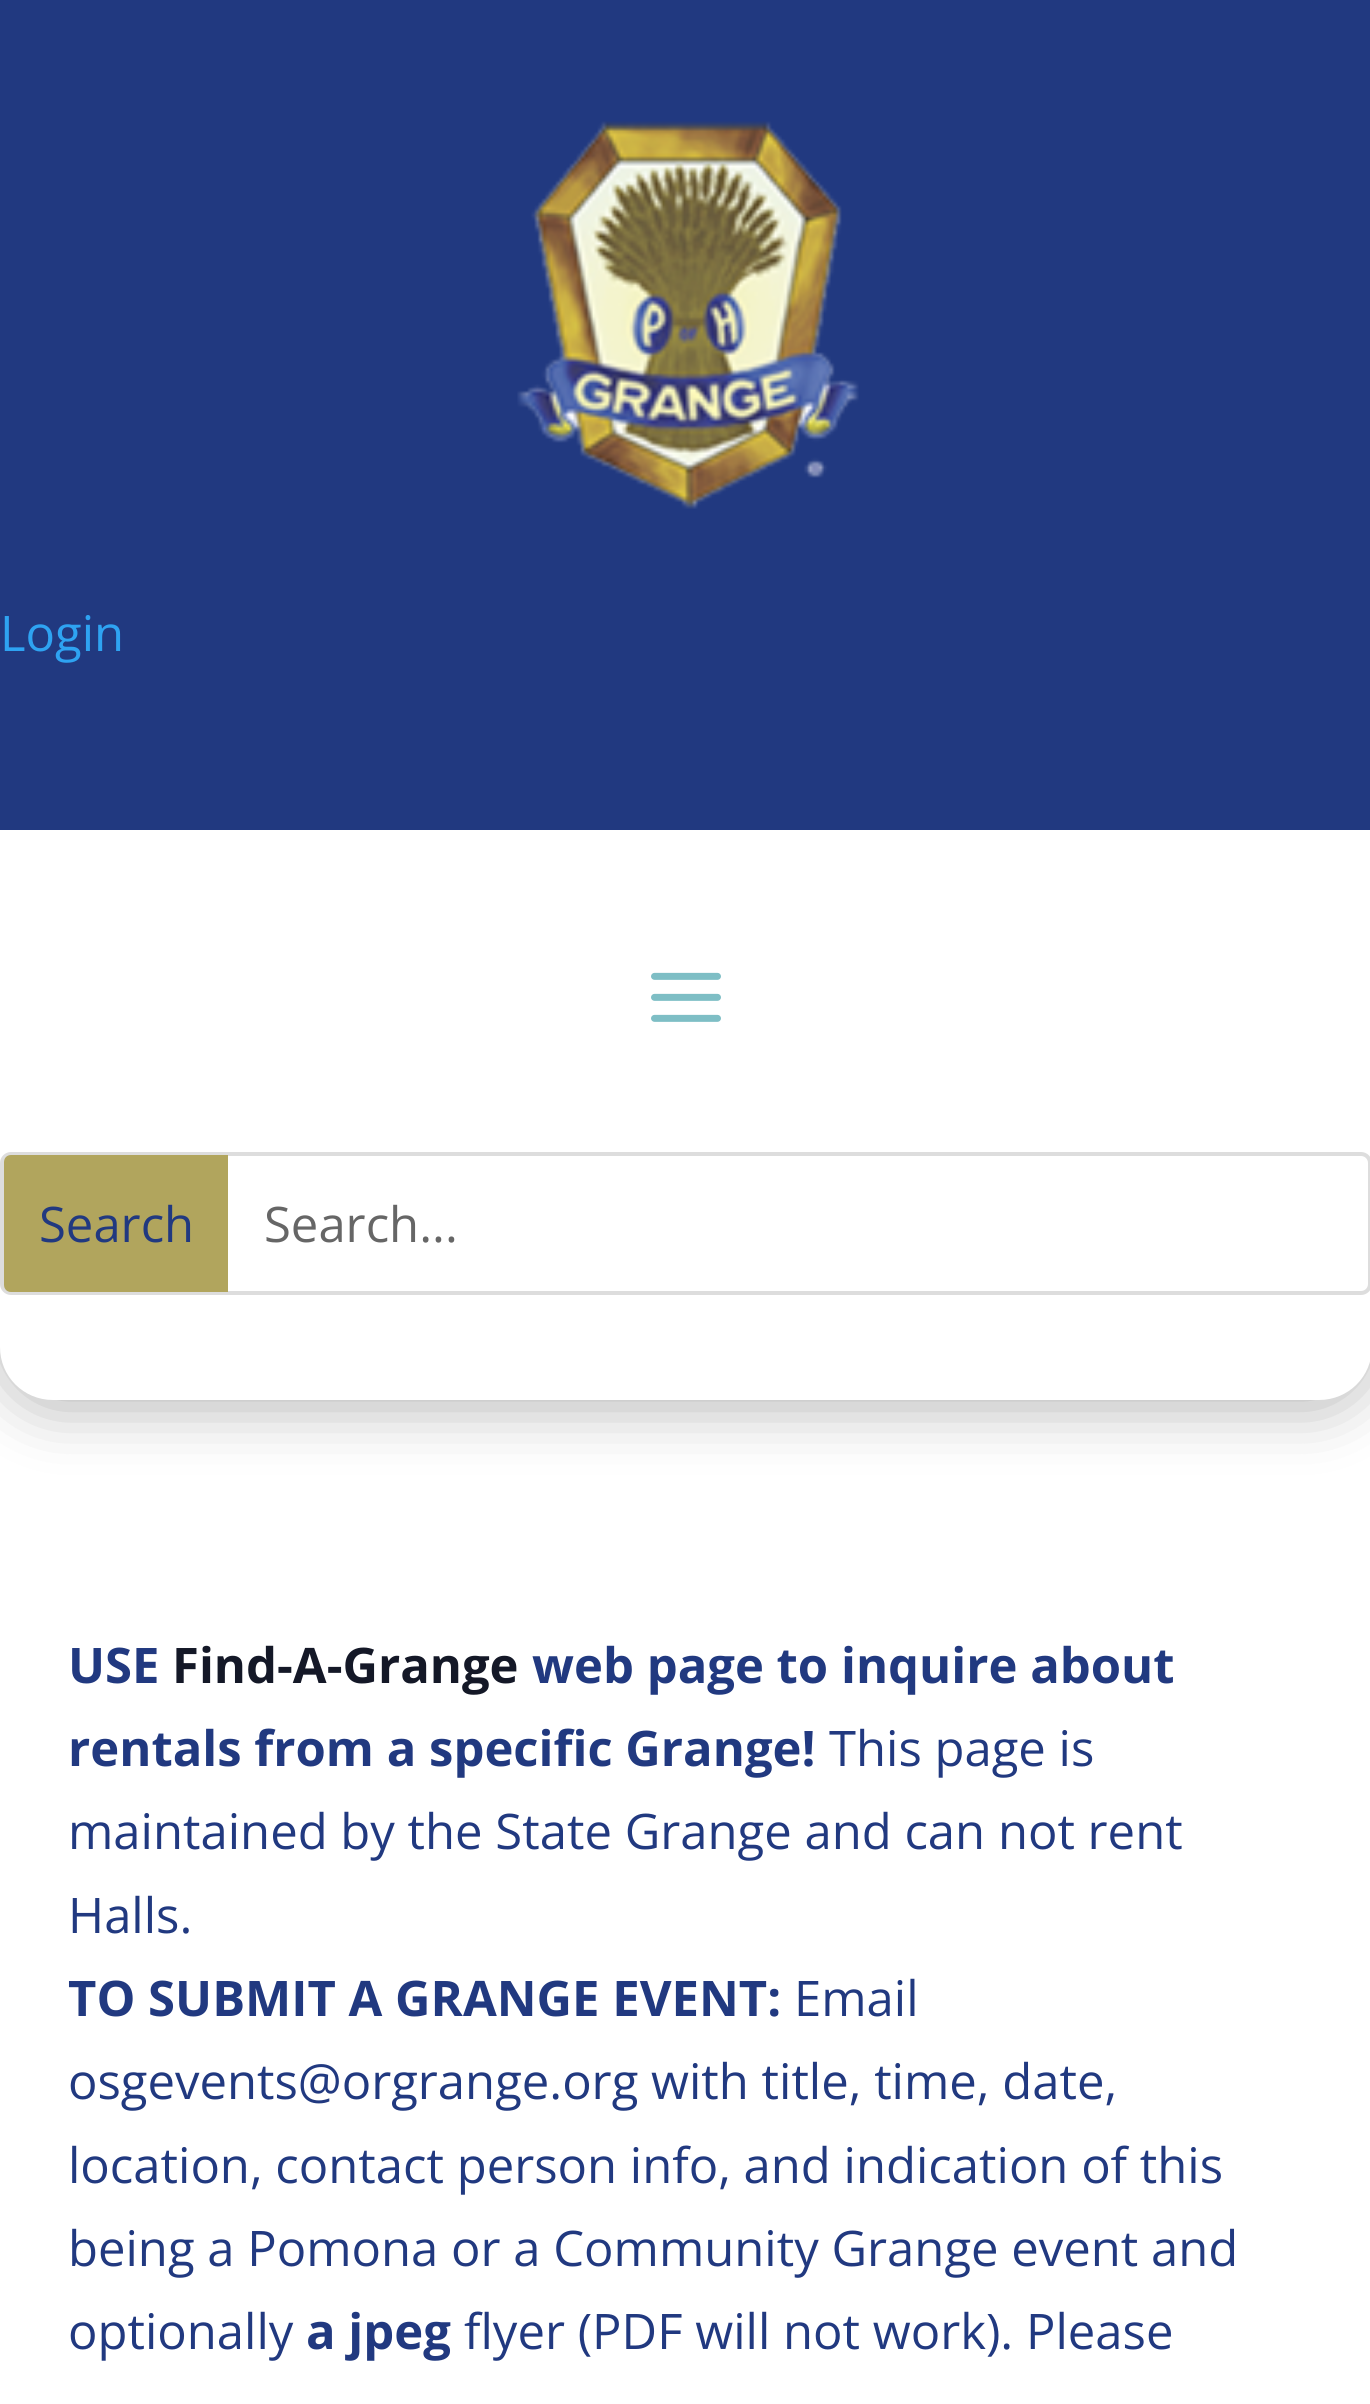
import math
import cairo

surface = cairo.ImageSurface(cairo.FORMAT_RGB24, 1370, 2404)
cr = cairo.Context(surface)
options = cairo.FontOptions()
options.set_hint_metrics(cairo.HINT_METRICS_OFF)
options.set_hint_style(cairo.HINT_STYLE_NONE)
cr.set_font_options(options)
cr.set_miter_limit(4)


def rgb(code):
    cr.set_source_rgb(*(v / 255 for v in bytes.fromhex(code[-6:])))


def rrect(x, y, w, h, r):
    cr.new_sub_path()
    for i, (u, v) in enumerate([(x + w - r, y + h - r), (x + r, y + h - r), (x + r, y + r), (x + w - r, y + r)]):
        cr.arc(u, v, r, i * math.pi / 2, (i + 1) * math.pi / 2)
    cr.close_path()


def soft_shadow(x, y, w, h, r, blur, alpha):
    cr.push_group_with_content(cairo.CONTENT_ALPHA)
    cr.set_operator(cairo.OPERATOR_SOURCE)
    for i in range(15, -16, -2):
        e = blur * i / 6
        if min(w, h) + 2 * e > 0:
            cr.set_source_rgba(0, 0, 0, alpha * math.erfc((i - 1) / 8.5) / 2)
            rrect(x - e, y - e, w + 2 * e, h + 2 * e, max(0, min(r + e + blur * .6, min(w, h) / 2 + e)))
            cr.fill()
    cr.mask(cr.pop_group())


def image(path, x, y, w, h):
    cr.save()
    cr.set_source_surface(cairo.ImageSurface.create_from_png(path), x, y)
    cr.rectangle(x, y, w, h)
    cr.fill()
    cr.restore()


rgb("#ffffff")
cr.paint()
rgb("#000000")
soft_shadow(0, 7, 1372, 1400, 53, 31.5, 0.3)
rgb("#ffffff")
cr.new_path()
cr.move_to(0, 0)
cr.line_to(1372, 0)
cr.line_to(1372, 1347)
cr.curve_to(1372, 1376.5, 1348.5, 1400, 1319, 1400)
cr.line_to(53, 1400)
cr.curve_to(23.5, 1400, 0, 1376.5, 0, 1347)
cr.close_path()
cr.fill()
rgb("#213980")
cr.rectangle(0, 0, 1370, 830)
cr.fill()
image("img/1.png", 517, 121, 342, 388)
image("img/2.png", 651, 972, 70, 50)
rrect(2, 1154, 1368, 139, 9)
rgb("#dddddd")
cr.set_line_width(4)
cr.stroke()
rgb("#b1a55d")
cr.new_path()
cr.move_to(11, 1155)
cr.line_to(228, 1155)
cr.line_to(228, 1292)
cr.line_to(11, 1292)
cr.curve_to(7, 1292, 4, 1289, 4, 1285)
cr.line_to(4, 1162)
cr.curve_to(4, 1158, 7, 1155, 11, 1155)
cr.close_path()
cr.fill()
cr.select_font_face("Open Sans")
cr.set_font_size(49)
rgb("#2ea3f2")
cr.move_to(0, 651)
cr.show_text("Login")
rgb("#213980")
cr.move_to(39, 1242)
cr.show_text("Search")
rgb("#666666")
cr.move_to(264, 1242)
cr.show_text("Search...")
cr.select_font_face("Open Sans", cairo.FONT_SLANT_NORMAL, cairo.FONT_WEIGHT_BOLD)
rgb("#213980")
cr.move_to(68, 1683)
cr.show_text("USE")
rgb("#141827")
cr.move_to(172, 1683)
cr.show_text("Find-A-Grange")
rgb("#213980")
cr.move_to(532, 1683)
cr.show_text("web page to inquire about")
cr.move_to(68, 1766)
cr.show_text("rentals from a specific Grange!")
cr.select_font_face("Open Sans")
for x, y, s in [
    (829, 1766, "This page is"),
    (68, 1849, "maintained by the State Grange and can not rent"),
    (68, 1933, "Halls."),
]:
    cr.move_to(x, y)
    cr.show_text(s)
cr.select_font_face("Open Sans", cairo.FONT_SLANT_NORMAL, cairo.FONT_WEIGHT_BOLD)
cr.move_to(68, 2016)
cr.show_text("TO SUBMIT A GRANGE EVENT:")
cr.select_font_face("Open Sans")
for x, y, s in [
    (794, 2016, "Email"),
    (68, 2099, "osgevents@orgrange.org with title, time, date,"),
    (68, 2183, "location, contact person info, and indication of this"),
    (68, 2266, "being a Pomona or a Community Grange event and"),
    (68, 2349, "optionally"),
]:
    cr.move_to(x, y)
    cr.show_text(s)
cr.select_font_face("Open Sans", cairo.FONT_SLANT_NORMAL, cairo.FONT_WEIGHT_BOLD)
cr.move_to(306, 2349)
cr.show_text("a jpeg")
cr.select_font_face("Open Sans")
cr.move_to(464, 2349)
cr.show_text("flyer (PDF will not work). Please")
surface.write_to_png("page.png")
